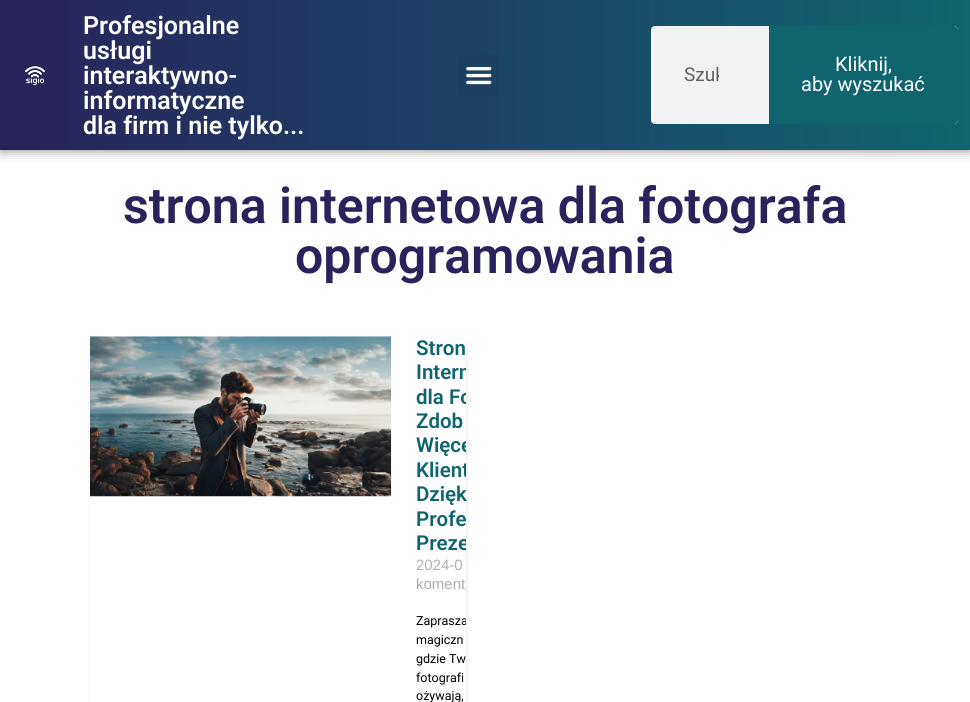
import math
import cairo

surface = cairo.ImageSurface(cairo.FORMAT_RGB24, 970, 702)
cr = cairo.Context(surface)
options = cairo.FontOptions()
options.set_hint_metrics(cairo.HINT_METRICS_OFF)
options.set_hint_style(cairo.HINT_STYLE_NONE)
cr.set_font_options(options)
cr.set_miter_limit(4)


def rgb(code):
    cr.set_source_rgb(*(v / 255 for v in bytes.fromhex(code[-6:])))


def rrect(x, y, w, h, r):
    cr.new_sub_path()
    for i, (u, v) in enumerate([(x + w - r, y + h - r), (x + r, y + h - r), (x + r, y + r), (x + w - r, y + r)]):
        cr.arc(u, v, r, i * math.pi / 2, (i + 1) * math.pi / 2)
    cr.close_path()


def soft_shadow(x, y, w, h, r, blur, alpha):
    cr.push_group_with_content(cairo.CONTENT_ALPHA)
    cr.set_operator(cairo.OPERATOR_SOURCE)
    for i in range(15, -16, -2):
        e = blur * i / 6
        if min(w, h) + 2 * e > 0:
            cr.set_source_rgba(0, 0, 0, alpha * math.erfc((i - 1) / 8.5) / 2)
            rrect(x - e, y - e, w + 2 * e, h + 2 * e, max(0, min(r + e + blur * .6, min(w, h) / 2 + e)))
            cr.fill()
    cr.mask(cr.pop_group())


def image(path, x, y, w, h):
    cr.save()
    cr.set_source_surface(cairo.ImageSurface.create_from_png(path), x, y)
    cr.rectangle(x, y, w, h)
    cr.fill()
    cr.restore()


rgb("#ffffff")
cr.paint()
rgb("#000000")
soft_shadow(0, 0, 970, 150, 0, 6, 0.5)
gradient = cairo.LinearGradient(0, 75, 970, 75)
gradient.add_color_stop_rgba(0, 0.161, 0.137, 0.361, 1)
gradient.add_color_stop_rgba(1, 0.059, 0.392, 0.439, 1)
cr.set_source(gradient)
cr.rectangle(0, 0, 970, 150)
cr.fill()
image("img/1.png", 25, 66, 20, 19)
rgb("#1b4061")
rrect(458, 55, 41, 41, 4)
cr.fill()
image("img/2.png", 466, 67, 26, 18)
rgb("#f1f2f3")
rrect(651, 26, 307, 98, 4)
cr.fill()
rgb("#0f6470")
cr.new_path()
cr.move_to(769, 26)
cr.line_to(954, 26)
cr.curve_to(956, 26, 958, 28, 958, 30)
cr.line_to(958, 120)
cr.curve_to(958, 122, 956, 124, 954, 124)
cr.line_to(769, 124)
cr.close_path()
cr.fill()
cr.save()
cr.set_fill_rule(cairo.FILL_RULE_EVEN_ODD)
cr.new_path()
cr.move_to(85, 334)
cr.line_to(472, 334)
cr.line_to(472, 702)
cr.line_to(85, 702)
cr.close_path()
cr.move_to(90, 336)
cr.line_to(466, 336)
cr.line_to(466, 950)
cr.line_to(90, 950)
cr.close_path()
cr.clip()
rgb("#000000")
soft_shadow(94, 343, 369, 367, 0, 2.5, 0.75)
cr.restore()
image("img/3.png", 90, 336, 302, 161)
cr.select_font_face("Roboto SemiBold")
cr.set_font_size(25)
rgb("#ffffff")
for x, y, s in [
    (83, 34, "Profesjonalne"),
    (83, 59, "usługi"),
    (83, 84, "interaktywno-"),
    (83, 109, "informatyczne"),
    (83, 134, "dla firm i nie tylko..."),
]:
    cr.move_to(x, y)
    cr.show_text(s)
cr.save()
cr.rectangle(684, 64, 35, 22)
cr.clip()
cr.select_font_face("Roboto")
cr.set_font_size(19)
rgb("#606161")
cr.move_to(684, 81)
cr.show_text("Szuk")
cr.restore()
cr.select_font_face("Roboto")
cr.set_font_size(20)
cr.move_to(835, 71)
cr.show_text("Kliknij,")
cr.move_to(801, 91)
cr.show_text("aby wyszukać")
cr.select_font_face("Roboto SemiBold")
cr.set_font_size(50)
rgb("#29235c")
cr.move_to(123, 223)
cr.show_text("strona internetowa dla fotografa")
cr.move_to(295, 273)
cr.show_text("oprogramowania")
cr.set_font_size(20.5)
rgb("#0f6470")
cr.move_to(416, 355)
cr.show_text("Stron")
cr.save()
cr.rectangle(90, 336, 376, 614)
cr.clip()
cr.move_to(416, 379)
cr.show_text("Intern")
cr.move_to(416, 404)
cr.show_text("dla Fo")
cr.restore()
cr.move_to(416, 428)
cr.show_text("Zdob")
cr.save()
cr.rectangle(90, 336, 376, 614)
cr.clip()
cr.move_to(416, 452)
cr.show_text("Więce")
cr.move_to(416, 477)
cr.show_text("Klient")
cr.restore()
cr.move_to(416, 501)
cr.show_text("Dzięk")
cr.move_to(416, 526)
cr.show_text("Profe")
cr.save()
cr.rectangle(90, 336, 376, 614)
cr.clip()
cr.move_to(416, 550)
cr.show_text("Preze")
cr.restore()
cr.select_font_face("Liberation Sans")
cr.set_font_size(15)
rgb("#adadad")
cr.move_to(416, 570)
cr.show_text("2024-0")
cr.move_to(416, 589)
cr.show_text("koment")
cr.save()
cr.rectangle(90, 336, 376, 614)
cr.clip()
cr.select_font_face("Roboto")
cr.set_font_size(12.5)
rgb("#000000")
cr.move_to(416, 625)
cr.show_text("Zaprasza")
cr.restore()
cr.select_font_face("Roboto")
cr.set_font_size(12.5)
rgb("#000000")
for x, y, s in [
    (416, 644, "magiczn"),
    (416, 663, "gdzie Tw"),
    (416, 682, "fotografi"),
    (416, 700, "ożywają,"),
]:
    cr.move_to(x, y)
    cr.show_text(s)
surface.write_to_png("page.png")
